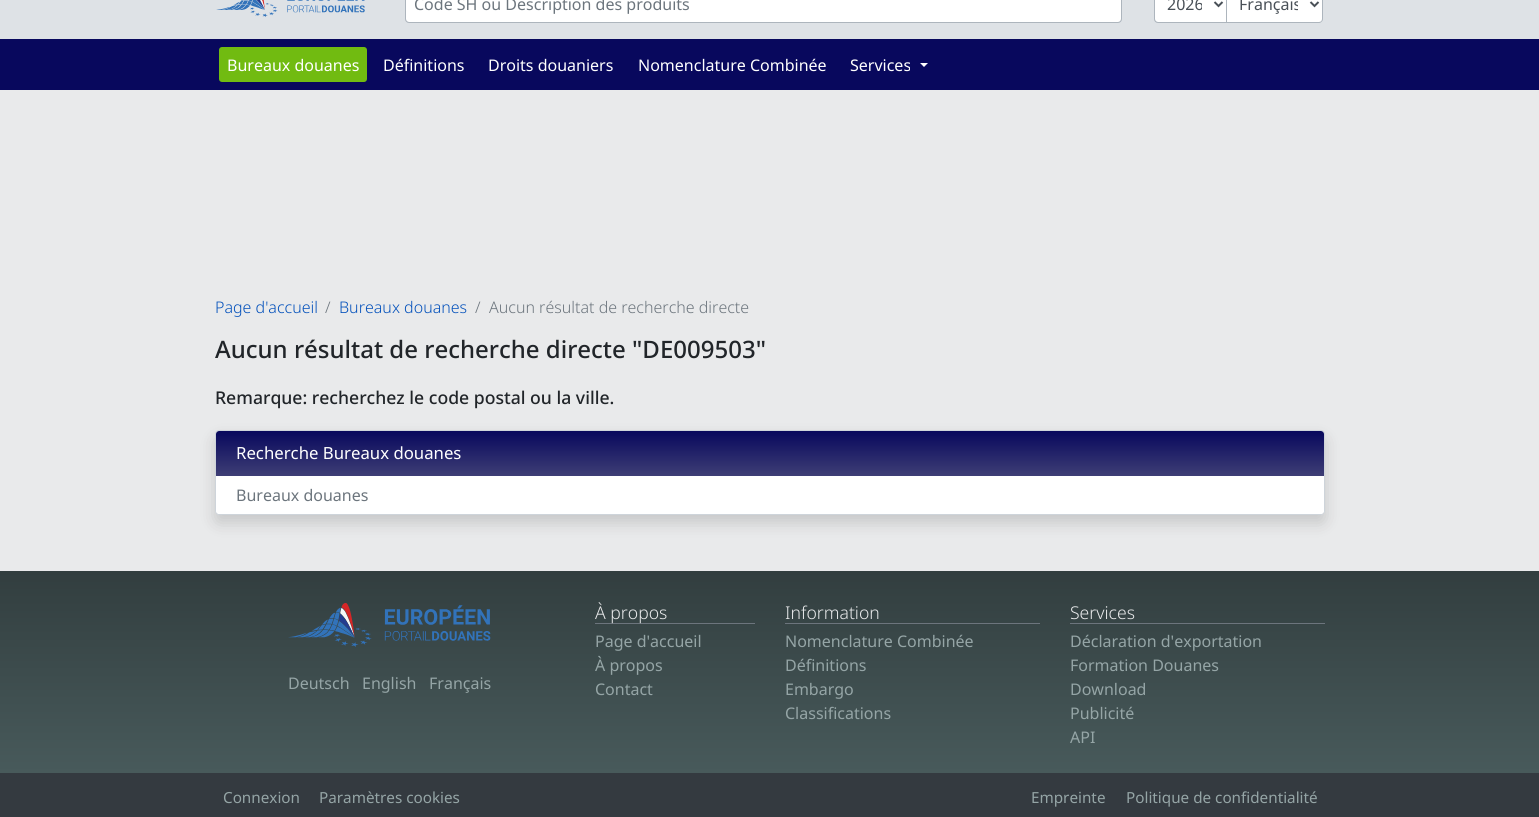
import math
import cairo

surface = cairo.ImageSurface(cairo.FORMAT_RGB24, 1539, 817)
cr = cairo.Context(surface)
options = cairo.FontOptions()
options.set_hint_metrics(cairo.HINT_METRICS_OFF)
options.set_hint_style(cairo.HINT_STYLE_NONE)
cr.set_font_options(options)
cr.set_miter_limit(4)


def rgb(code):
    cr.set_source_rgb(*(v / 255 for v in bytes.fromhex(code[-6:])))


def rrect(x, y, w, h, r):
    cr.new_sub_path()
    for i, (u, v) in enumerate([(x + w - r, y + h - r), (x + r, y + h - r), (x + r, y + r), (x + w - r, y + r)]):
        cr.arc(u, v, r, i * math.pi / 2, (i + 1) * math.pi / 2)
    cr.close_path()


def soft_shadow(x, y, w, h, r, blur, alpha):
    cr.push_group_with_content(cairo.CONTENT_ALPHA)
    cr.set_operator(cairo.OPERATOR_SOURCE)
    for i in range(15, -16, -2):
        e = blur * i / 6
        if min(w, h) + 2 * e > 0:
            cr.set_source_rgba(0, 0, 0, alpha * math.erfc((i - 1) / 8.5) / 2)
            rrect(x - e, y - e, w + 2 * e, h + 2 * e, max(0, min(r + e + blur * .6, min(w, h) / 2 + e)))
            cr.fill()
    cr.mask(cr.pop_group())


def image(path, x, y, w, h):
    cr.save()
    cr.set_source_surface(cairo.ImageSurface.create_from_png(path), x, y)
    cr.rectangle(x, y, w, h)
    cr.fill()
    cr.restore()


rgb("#343a40")
cr.paint()
rgb("#dee2e6")
cr.rectangle(0, 0, 1539, 39)
cr.fill()
image("img/1.png", 216, 0, 149, 17)
rgb("#ffffff")
rrect(406, -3, 715, 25, 3)
cr.fill()
rrect(405.5, -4.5, 716, 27, 3.5)
rgb("#adb5bd")
cr.set_line_width(1)
cr.stroke()
rgb("#ffffff")
cr.new_path()
cr.move_to(1158, -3)
cr.line_to(1226, -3)
cr.line_to(1226, 22)
cr.line_to(1158, 22)
cr.curve_to(1156.5, 22, 1155, 20.5, 1155, 19)
cr.line_to(1155, 0)
cr.curve_to(1155, -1.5, 1156.5, -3, 1158, -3)
cr.close_path()
cr.fill()
cr.new_path()
cr.move_to(1158, -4.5)
cr.line_to(1226.5, -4.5)
cr.line_to(1226.5, 22.5)
cr.line_to(1158, 22.5)
cr.curve_to(1156, 22.5, 1154.5, 21, 1154.5, 19)
cr.line_to(1154.5, -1)
cr.curve_to(1154.5, -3, 1156, -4.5, 1158, -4.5)
cr.close_path()
rgb("#adb5bd")
cr.stroke()
cr.new_path()
cr.move_to(1214.5, 2)
cr.line_to(1218.5, 6)
cr.line_to(1222.5, 2)
rgb("#495057")
cr.set_line_width(2)
cr.stroke()
rgb("#ffffff")
cr.new_path()
cr.move_to(1227, -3)
cr.line_to(1319, -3)
cr.curve_to(1320.5, -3, 1322, -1.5, 1322, 0)
cr.line_to(1322, 19)
cr.curve_to(1322, 20.5, 1320.5, 22, 1319, 22)
cr.line_to(1227, 22)
cr.close_path()
cr.fill()
rgb("#adb5bd")
cr.set_fill_rule(cairo.FILL_RULE_EVEN_ODD)
cr.new_path()
cr.move_to(1227, -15)
cr.line_to(1319, -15)
cr.curve_to(1321, -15, 1323, -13, 1323, -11)
cr.line_to(1323, 19)
cr.curve_to(1323, 21, 1321, 23, 1319, 23)
cr.line_to(1227, 23)
cr.close_path()
cr.move_to(1227, -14)
cr.line_to(1319, -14)
cr.curve_to(1321, -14, 1322, -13, 1322, -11)
cr.line_to(1322, 19)
cr.curve_to(1322, 21, 1321, 22, 1319, 22)
cr.line_to(1227, 22)
cr.close_path()
cr.fill()
cr.new_path()
cr.move_to(1310.5, 2)
cr.line_to(1314.5, 6)
cr.line_to(1318.5, 2)
rgb("#495057")
cr.stroke()
rgb("#08085d")
cr.rectangle(0, 39, 1539, 51)
cr.fill()
rgb("#71bb11")
rrect(219, 47, 148, 35, 3)
cr.fill()
rgb("#ffffff")
cr.set_fill_rule(cairo.FILL_RULE_WINDING)
cr.new_path()
cr.move_to(920, 63)
cr.line_to(928, 63)
cr.line_to(924, 67)
cr.close_path()
cr.fill()
rgb("#e9eaeb")
cr.rectangle(0, 90, 1539, 481)
cr.fill()
rgb("#000000")
soft_shadow(215, 438, 1110, 85, 4, 8, 0.15)
rgb("#ffffff")
rrect(215.5, 430.5, 1109, 84, 3.5)
cr.fill_preserve()
rgb("#ced4da")
cr.set_line_width(1)
cr.stroke()
gradient = cairo.LinearGradient(770, 431, 770, 476)
gradient.add_color_stop_rgba(0, 0.031, 0.031, 0.365, 1)
gradient.add_color_stop_rgba(1, 0.243, 0.243, 0.459, 1)
cr.set_source(gradient)
cr.new_path()
cr.move_to(219, 431)
cr.line_to(1321, 431)
cr.curve_to(1322.5, 431, 1324, 432.5, 1324, 434)
cr.line_to(1324, 476)
cr.line_to(216, 476)
cr.line_to(216, 434)
cr.curve_to(216, 432.5, 217.5, 431, 219, 431)
cr.close_path()
cr.fill()
rgb("#ffffff")
rrect(216, 476, 1108, 38, 4)
cr.fill()
gradient = cairo.LinearGradient(770, 773, 770, 571)
gradient.add_color_stop_rgba(0, 0.282, 0.353, 0.357, 1)
gradient.add_color_stop_rgba(1, 0.196, 0.243, 0.247, 1)
cr.set_source(gradient)
cr.rectangle(0, 571, 1539, 202)
cr.fill()
image("img/2.png", 288, 603, 203, 44)
for x, y, w, h, color in [
    (595, 623, 160, 1, "#6c757d"),
    (785, 623, 255, 1, "#6c757d"),
    (1070, 623, 255, 1, "#6c757d"),
]:
    rgb(color)
    cr.rectangle(x, y, w, h)
    cr.fill()
cr.select_font_face("Noto Sans")
cr.set_font_size(16)
cr.move_to(414, 10)
cr.show_text("Code SH ou Description des produits")
cr.save()
cr.rectangle(1167, 0, 35, 16)
cr.clip()
rgb("#495057")
cr.move_to(1167, 10)
cr.show_text("2026")
cr.restore()
cr.save()
cr.rectangle(1239, 0, 59, 16)
cr.clip()
rgb("#495057")
cr.move_to(1239, 10)
cr.show_text("Français")
cr.restore()
rgb("#ffffff")
for x, y, s in [
    (227, 71, "Bureaux douanes"),
    (383, 71, "Définitions"),
    (488, 71, "Droits douaniers"),
    (638, 71, "Nomenclature Combinée"),
    (850, 71, "Services"),
]:
    cr.move_to(x, y)
    cr.show_text(s)
cr.select_font_face("Noto Sans Light")
rgb("#0250bb")
cr.move_to(215, 313)
cr.show_text("Page d'accueil")
rgb("#6c757d")
cr.move_to(325, 313)
cr.show_text("/")
rgb("#0250bb")
cr.move_to(339, 313)
cr.show_text("Bureaux douanes")
rgb("#6c757d")
cr.move_to(475, 313)
cr.show_text("/")
cr.move_to(489, 313)
cr.show_text("Aucun résultat de recherche directe")
cr.select_font_face("Noto Sans Medium")
cr.set_font_size(24)
rgb("#212529")
cr.move_to(215, 358)
cr.show_text("Aucun résultat de recherche directe \"DE009503\"")
cr.set_font_size(17.6)
cr.move_to(215, 404)
cr.show_text("Remarque: recherchez le code postal ou la ville.")
cr.select_font_face("Noto Sans")
cr.set_font_size(16.75)
rgb("#ffffff")
cr.move_to(236, 459)
cr.show_text("Recherche Bureaux douanes")
cr.set_font_size(16)
rgb("#6c757d")
cr.move_to(236, 501)
cr.show_text("Bureaux douanes")
rgb("#95a5a6")
for x, y, s in [
    (288, 689, "Deutsch"),
    (362, 689, "English"),
    (429, 689, "Français"),
]:
    cr.move_to(x, y)
    cr.show_text(s)
cr.select_font_face("Noto Sans Light")
cr.set_font_size(17.6)
rgb("#e9eaeb")
cr.move_to(595, 619)
cr.show_text("À propos")
cr.select_font_face("Noto Sans")
cr.set_font_size(16)
rgb("#95a5a6")
for x, y, s in [
    (595, 647, "Page d'accueil"),
    (595, 671, "À propos"),
    (595, 695, "Contact"),
]:
    cr.move_to(x, y)
    cr.show_text(s)
cr.select_font_face("Noto Sans Light")
cr.set_font_size(17.6)
rgb("#e9eaeb")
cr.move_to(785, 619)
cr.show_text("Information")
cr.select_font_face("Noto Sans")
cr.set_font_size(16)
rgb("#95a5a6")
for x, y, s in [
    (785, 647, "Nomenclature Combinée"),
    (785, 671, "Définitions"),
    (785, 695, "Embargo"),
    (785, 719, "Classifications"),
]:
    cr.move_to(x, y)
    cr.show_text(s)
cr.select_font_face("Noto Sans Light")
cr.set_font_size(17.6)
rgb("#e9eaeb")
cr.move_to(1070, 619)
cr.show_text("Services")
cr.select_font_face("Noto Sans")
cr.set_font_size(16)
rgb("#95a5a6")
for x, y, s in [
    (1070, 647, "Déclaration d'exportation"),
    (1070, 671, "Formation Douanes"),
    (1070, 695, "Download"),
    (1070, 719, "Publicité"),
    (1070, 743, "API"),
]:
    cr.move_to(x, y)
    cr.show_text(s)
cr.set_font_size(15.25)
for x, y, s in [
    (223, 803, "Connexion"),
    (319, 803, "Paramètres cookies"),
    (1031, 803, "Empreinte"),
    (1126, 803, "Politique de confidentialité"),
]:
    cr.move_to(x, y)
    cr.show_text(s)
surface.write_to_png("page.png")
